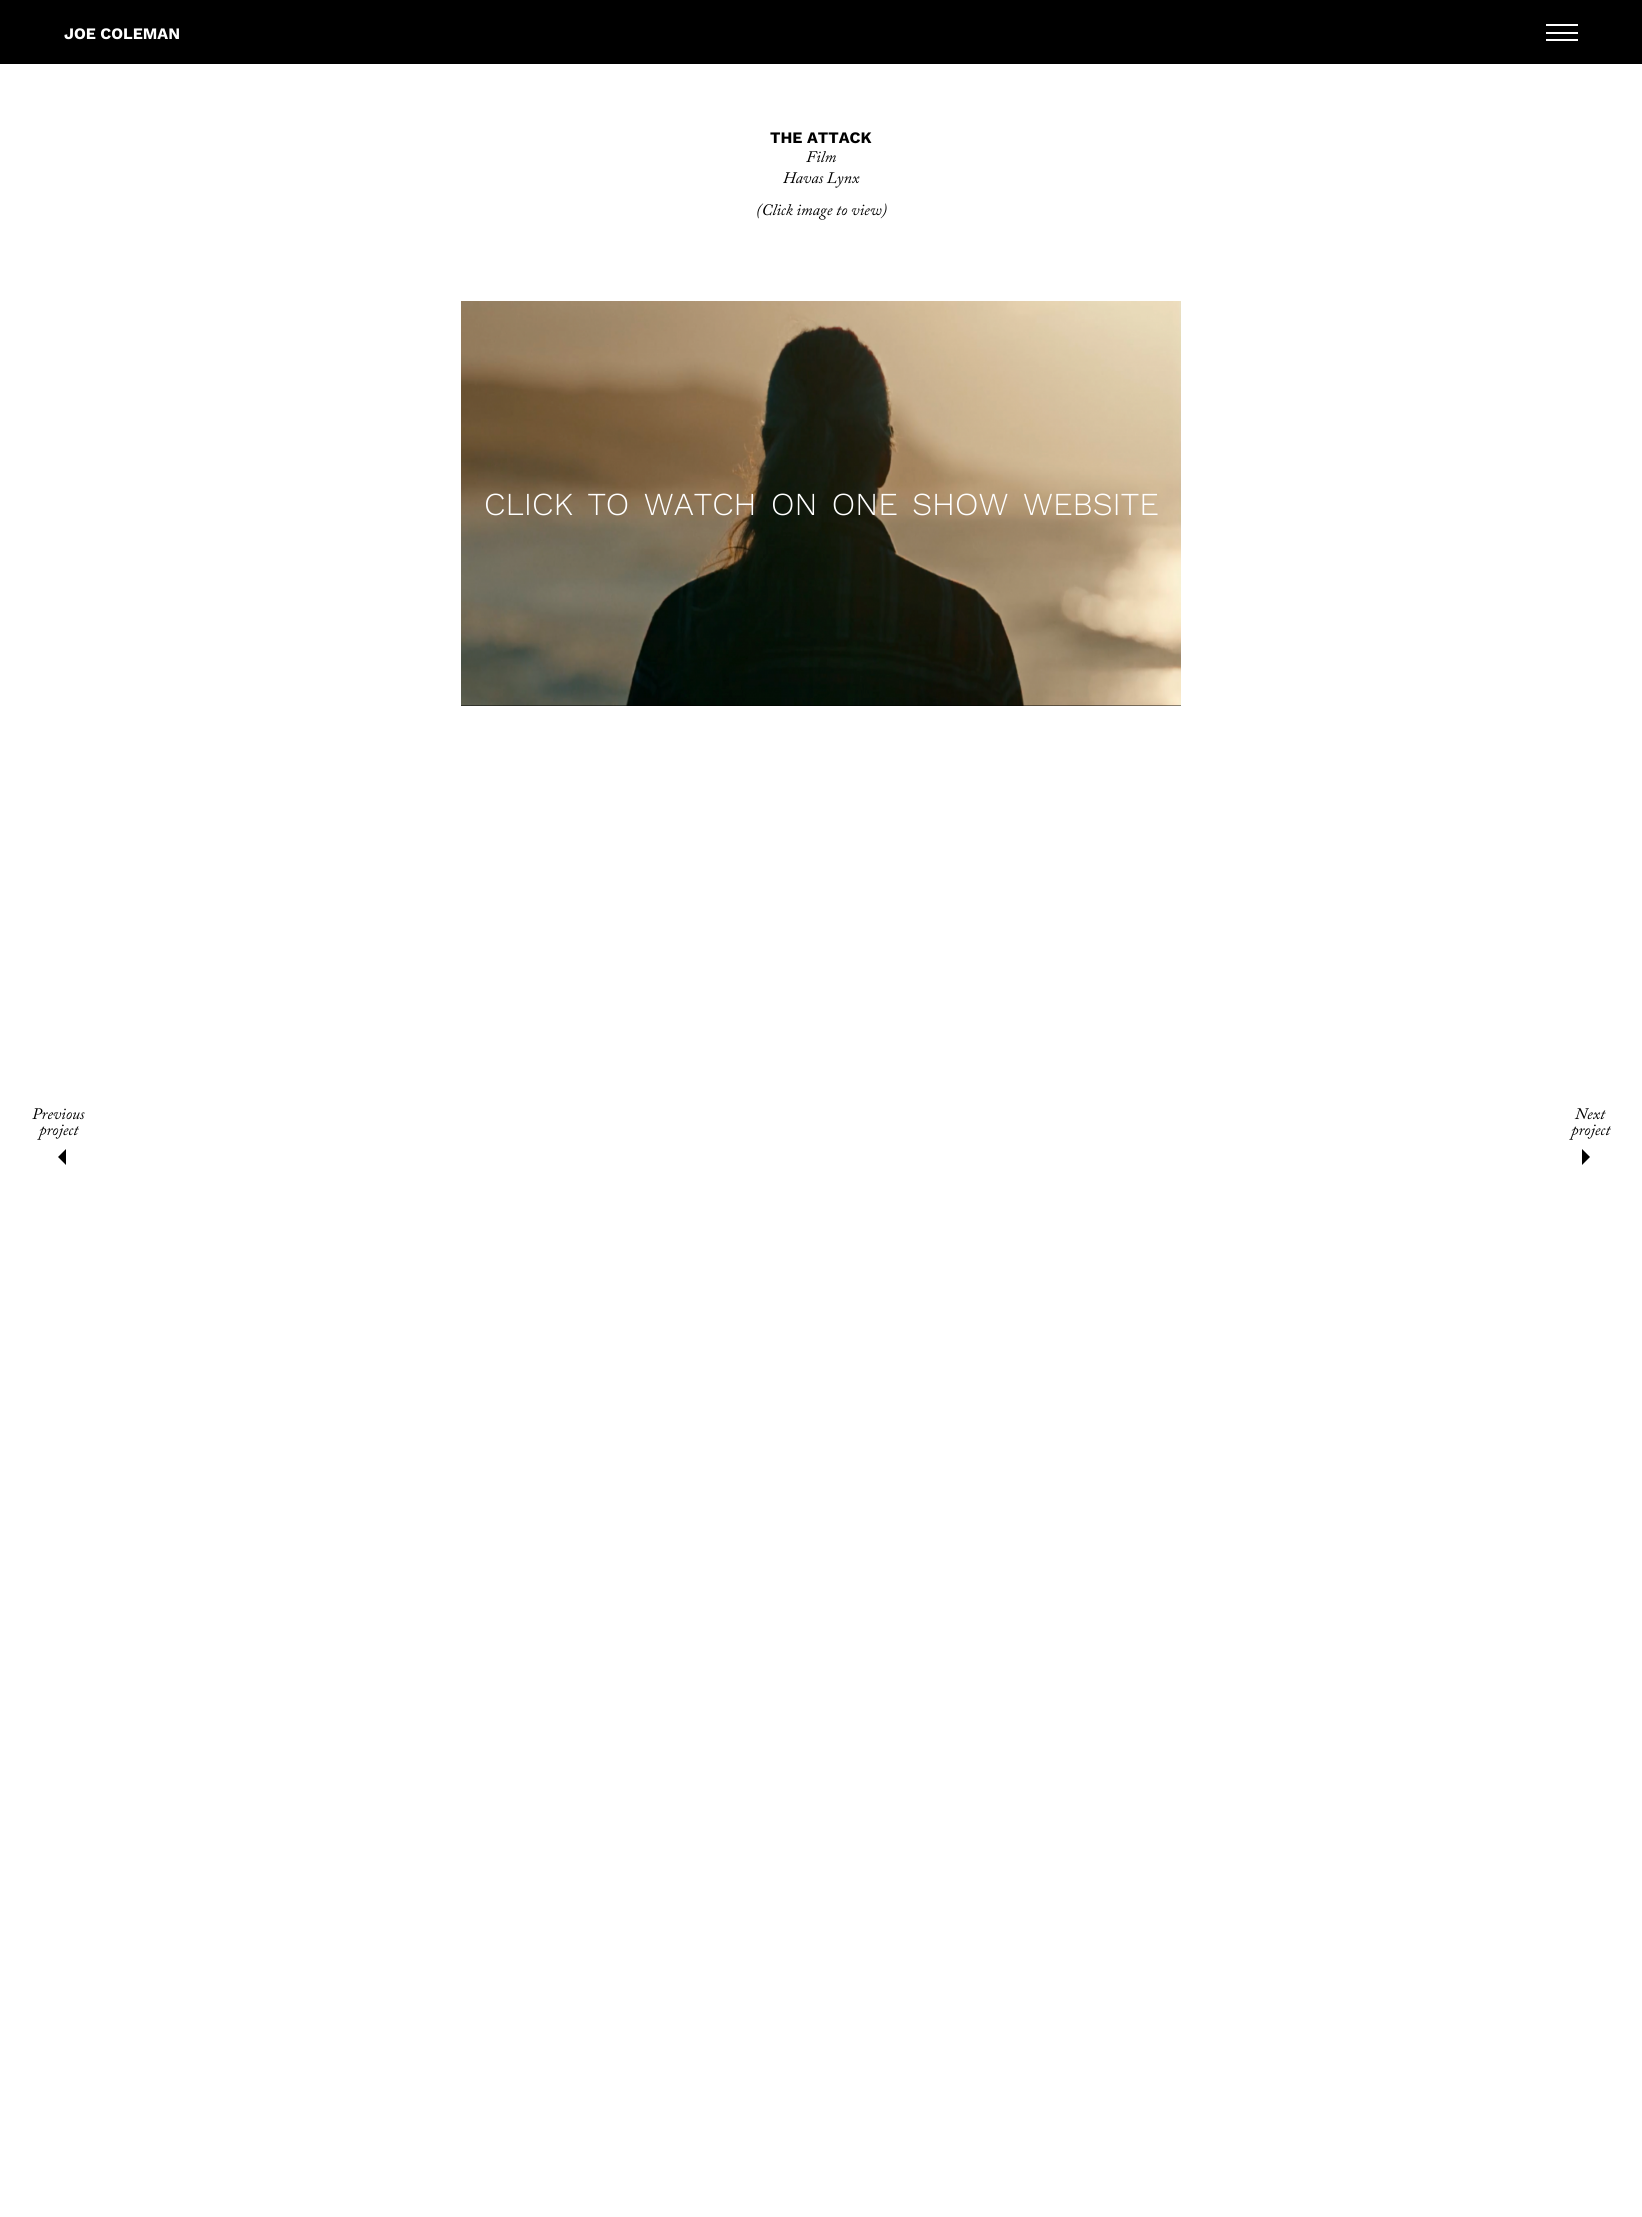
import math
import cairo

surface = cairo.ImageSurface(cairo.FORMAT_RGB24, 1642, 2217)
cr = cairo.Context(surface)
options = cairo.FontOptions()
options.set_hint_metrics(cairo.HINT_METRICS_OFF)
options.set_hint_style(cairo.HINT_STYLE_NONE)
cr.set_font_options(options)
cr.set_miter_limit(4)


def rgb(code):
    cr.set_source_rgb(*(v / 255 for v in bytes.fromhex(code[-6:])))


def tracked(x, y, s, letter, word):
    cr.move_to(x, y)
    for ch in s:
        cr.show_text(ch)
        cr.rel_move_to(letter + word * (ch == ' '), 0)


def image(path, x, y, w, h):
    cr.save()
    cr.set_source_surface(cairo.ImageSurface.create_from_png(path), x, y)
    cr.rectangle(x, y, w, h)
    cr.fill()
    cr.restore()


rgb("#ffffff")
cr.paint()
for x, y, w, h, color in [
    (0, 0, 1642, 64, "#000000"),
    (1546, 39, 32, 2, "#ffffff"),
    (1546, 32, 32, 2, "#ffffff"),
    (1546, 24, 32, 2, "#ffffff"),
]:
    rgb(color)
    cr.rectangle(x, y, w, h)
    cr.fill()
image("img/1.png", 461, 301, 720, 405)
rgb("#000000")
cr.new_path()
cr.move_to(66, 1149)
cr.line_to(66, 1165)
cr.line_to(58, 1157)
cr.close_path()
cr.fill()
cr.new_path()
cr.move_to(1582, 1165)
cr.line_to(1582, 1149)
cr.line_to(1590, 1157)
cr.close_path()
cr.fill()
cr.select_font_face("Work Sans", cairo.FONT_SLANT_NORMAL, cairo.FONT_WEIGHT_BOLD)
cr.set_font_size(16)
rgb("#ffffff")
cr.move_to(64, 39)
cr.show_text("JOE COLEMAN")
rgb("#000000")
cr.move_to(770, 143)
cr.show_text("THE ATTACK")
cr.select_font_face("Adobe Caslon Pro", cairo.FONT_SLANT_ITALIC)
for x, y, s in [
    (806, 162, "Film"),
    (783, 183, "Havas Lynx"),
    (756, 215, "(Click image to view)"),
]:
    cr.move_to(x, y)
    cr.show_text(s)
cr.select_font_face("Work Sans Light")
cr.set_font_size(32)
rgb("#ffffff")
tracked(484, 515, "CLICK TO WATCH ON ONE SHOW WEBSITE", 0, 4.5)
cr.select_font_face("Adobe Caslon Pro", cairo.FONT_SLANT_ITALIC)
cr.set_font_size(16)
rgb("#000000")
for x, y, s in [
    (32, 1119, "Previous"),
    (39, 1135, "project"),
    (1575, 1119, "Next"),
    (1571, 1135, "project"),
]:
    cr.move_to(x, y)
    cr.show_text(s)
surface.write_to_png("page.png")
